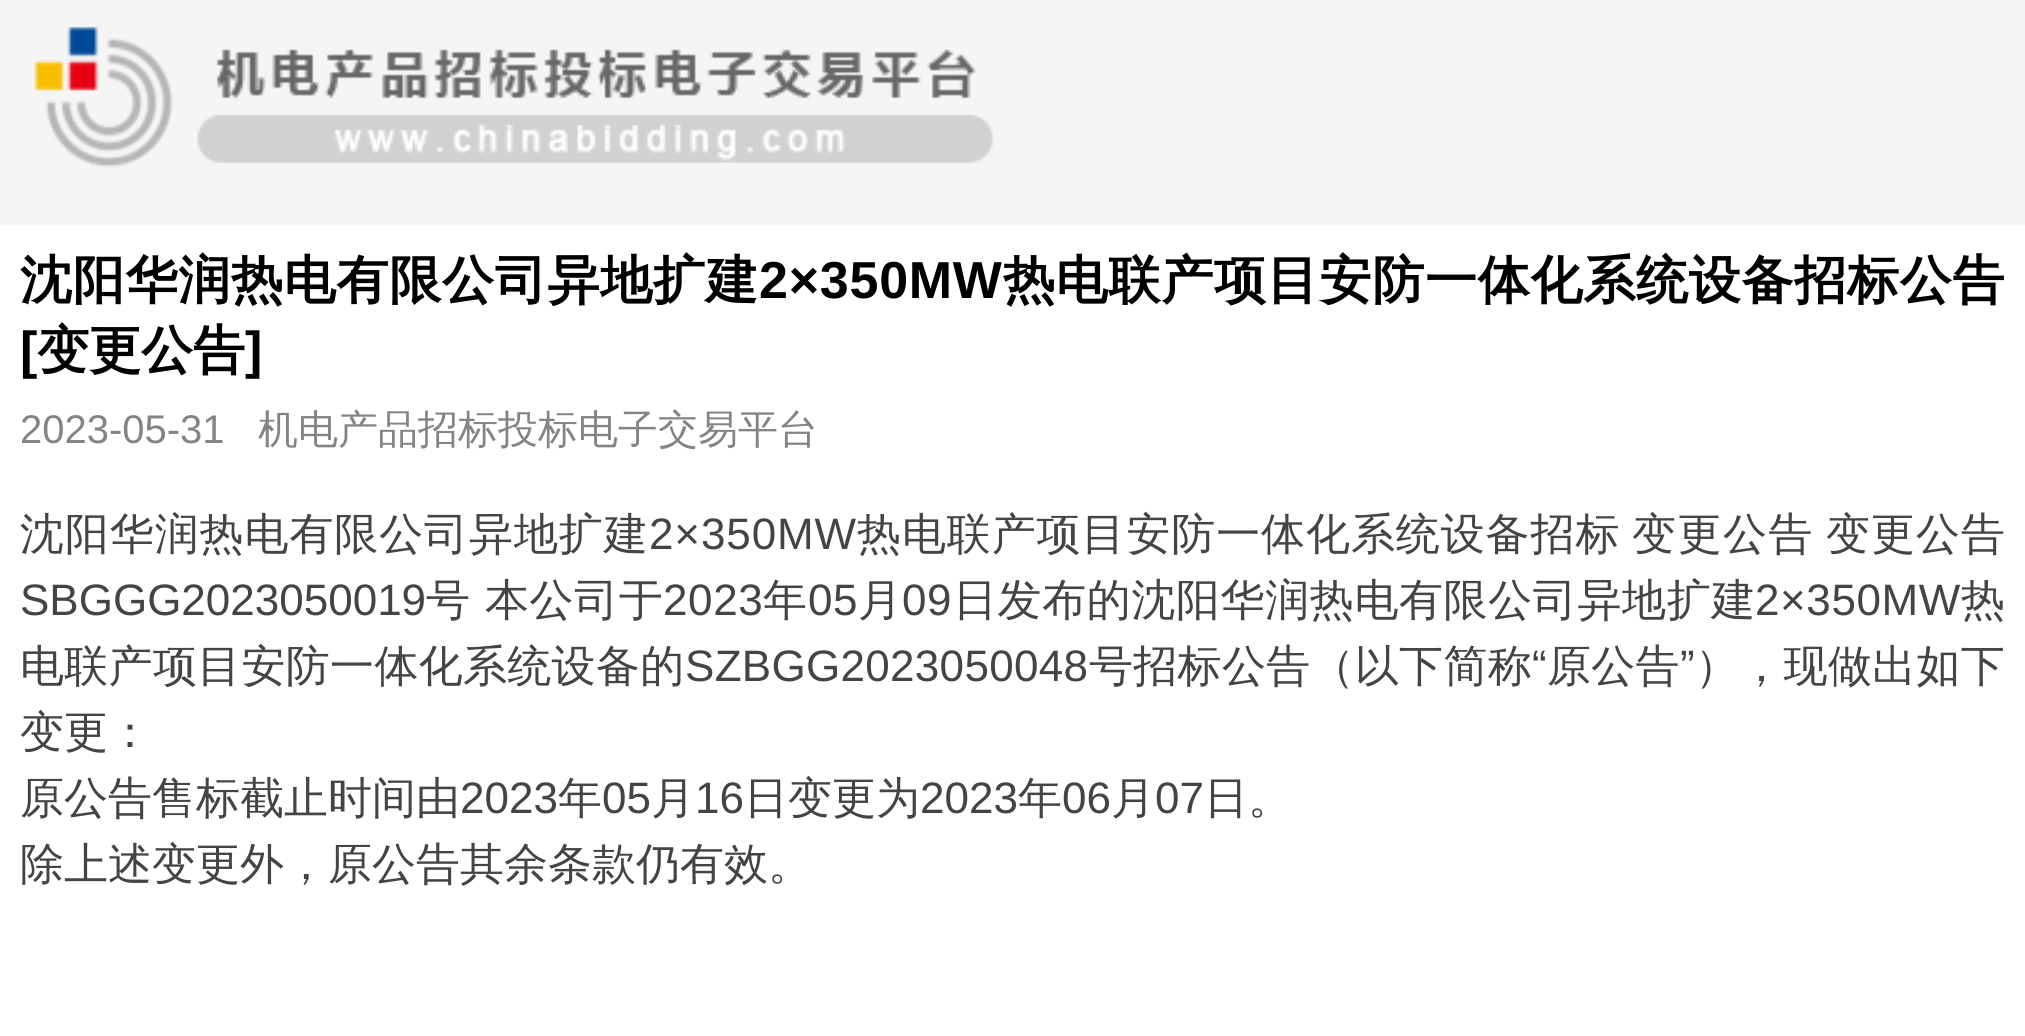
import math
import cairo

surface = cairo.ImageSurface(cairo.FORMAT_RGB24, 2025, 1036)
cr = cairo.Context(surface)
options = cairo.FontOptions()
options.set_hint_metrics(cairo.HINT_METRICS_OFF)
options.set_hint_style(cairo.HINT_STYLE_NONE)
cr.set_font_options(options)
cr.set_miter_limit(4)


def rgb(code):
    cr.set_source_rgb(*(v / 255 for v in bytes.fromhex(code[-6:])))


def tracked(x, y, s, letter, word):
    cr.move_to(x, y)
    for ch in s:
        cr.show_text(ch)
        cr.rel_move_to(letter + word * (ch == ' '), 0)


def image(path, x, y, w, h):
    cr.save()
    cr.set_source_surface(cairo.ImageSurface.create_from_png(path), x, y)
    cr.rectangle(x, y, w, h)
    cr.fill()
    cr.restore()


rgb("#ffffff")
cr.paint()
rgb("#f5f5f5")
cr.rectangle(0, 0, 2025, 225)
cr.fill()
image("img/1.png", 34, 26, 960, 142)
cr.select_font_face("WenQuanYi Zen Hei", cairo.FONT_SLANT_NORMAL, cairo.FONT_WEIGHT_BOLD)
cr.set_font_size(52)
rgb("#000000")
tracked(20, 298, "沈阳华润热电有限公司异地扩建", 0.75, 0)
cr.select_font_face("Liberation Sans", cairo.FONT_SLANT_NORMAL, cairo.FONT_WEIGHT_BOLD)
tracked(759, 298, "2×350MW", 0.75, 0)
cr.select_font_face("WenQuanYi Zen Hei", cairo.FONT_SLANT_NORMAL, cairo.FONT_WEIGHT_BOLD)
tracked(1003, 298, "热电联产项目安防一体化系统设备招标公告", 0.75, 0)
cr.select_font_face("Liberation Sans", cairo.FONT_SLANT_NORMAL, cairo.FONT_WEIGHT_BOLD)
cr.move_to(20, 368)
cr.show_text("[")
cr.select_font_face("WenQuanYi Zen Hei", cairo.FONT_SLANT_NORMAL, cairo.FONT_WEIGHT_BOLD)
cr.move_to(37, 368)
cr.show_text("变更公告")
cr.select_font_face("Liberation Sans", cairo.FONT_SLANT_NORMAL, cairo.FONT_WEIGHT_BOLD)
cr.move_to(245, 368)
cr.show_text("]")
cr.select_font_face("Liberation Sans")
cr.set_font_size(40)
rgb("#848484")
cr.move_to(20, 443)
cr.show_text("2023-05-31")
cr.select_font_face("WenQuanYi Zen Hei Medium")
cr.move_to(258, 443)
cr.show_text("机电产品招标投标电子交易平台")
cr.set_font_size(44)
rgb("#444444")
tracked(20, 549, "沈阳华润热电有限公司异地扩建", 0.9, 0)
cr.select_font_face("Liberation Sans")
tracked(649, 549, "2×350MW", 0.9, 0)
cr.select_font_face("WenQuanYi Zen Hei Medium")
tracked(857, 549, "热电联产项目安防一体化系统设备招标", 0.9, 0)
tracked(1632, 549, "变更公告", 1.5, 0)
tracked(1826, 549, "变更公告", 1, 0)
tracked(485, 615, "本公司于", 0.6, 0)
cr.select_font_face("Liberation Sans")
tracked(663, 615, "2023", 0.6, 0)
cr.select_font_face("WenQuanYi Zen Hei Medium")
tracked(763, 615, "年", 0.6, 0)
cr.select_font_face("Liberation Sans")
tracked(808, 615, "05", 0.6, 0)
cr.select_font_face("WenQuanYi Zen Hei Medium")
tracked(858, 615, "月", 0.6, 0)
cr.select_font_face("Liberation Sans")
tracked(902, 615, "09", 0.6, 0)
cr.select_font_face("WenQuanYi Zen Hei Medium")
tracked(953, 615, "日发布的沈阳华润热电有限公司异地扩建", 0.6, 0)
cr.select_font_face("Liberation Sans")
tracked(1755, 615, "2×350MW", 0.6, 0)
cr.select_font_face("WenQuanYi Zen Hei Medium")
tracked(1961, 615, "热", 0.6, 0)
tracked(20, 681, "电联产项目安防一体化系统设备的", 0.3, 0)
cr.select_font_face("Liberation Sans")
tracked(685, 681, "SZBGG2023050048", 0.3, 0)
cr.select_font_face("WenQuanYi Zen Hei Medium")
tracked(1089, 681, "号招标公告（以下简称", 0.3, 0)
cr.select_font_face("Liberation Sans")
tracked(1532, 681, "“", 0.3, 0)
cr.select_font_face("WenQuanYi Zen Hei Medium")
tracked(1547, 681, "原公告", 0.3, 0)
cr.select_font_face("Liberation Sans")
tracked(1680, 681, "”", 0.3, 0)
cr.select_font_face("WenQuanYi Zen Hei Medium")
tracked(1695, 681, "），现做出如下", 0.3, 0)
cr.move_to(20, 747)
cr.show_text("变更：")
cr.move_to(20, 813)
cr.show_text("原公告售标截止时间由")
cr.select_font_face("Liberation Sans")
cr.move_to(460, 813)
cr.show_text("2023")
cr.select_font_face("WenQuanYi Zen Hei Medium")
cr.move_to(558, 813)
cr.show_text("年")
cr.select_font_face("Liberation Sans")
cr.move_to(602, 813)
cr.show_text("05")
cr.select_font_face("WenQuanYi Zen Hei Medium")
cr.move_to(651, 813)
cr.show_text("月")
cr.select_font_face("Liberation Sans")
cr.move_to(695, 813)
cr.show_text("16")
cr.select_font_face("WenQuanYi Zen Hei Medium")
cr.move_to(744, 813)
cr.show_text("日变更为")
cr.select_font_face("Liberation Sans")
cr.move_to(920, 813)
cr.show_text("2023")
cr.select_font_face("WenQuanYi Zen Hei Medium")
cr.move_to(1018, 813)
cr.show_text("年")
cr.select_font_face("Liberation Sans")
cr.move_to(1062, 813)
cr.show_text("06")
cr.select_font_face("WenQuanYi Zen Hei Medium")
cr.move_to(1111, 813)
cr.show_text("月")
cr.select_font_face("Liberation Sans")
cr.move_to(1155, 813)
cr.show_text("07")
cr.select_font_face("WenQuanYi Zen Hei Medium")
cr.move_to(1204, 813)
cr.show_text("日。")
cr.move_to(20, 879)
cr.show_text("除上述变更外，原公告其余条款仍有效。")
cr.select_font_face("Liberation Sans")
cr.move_to(20, 615)
cr.show_text("SBGGG2023050019")
cr.select_font_face("WenQuanYi Zen Hei Medium")
cr.move_to(426, 615)
cr.show_text("号")
surface.write_to_png("page.png")
